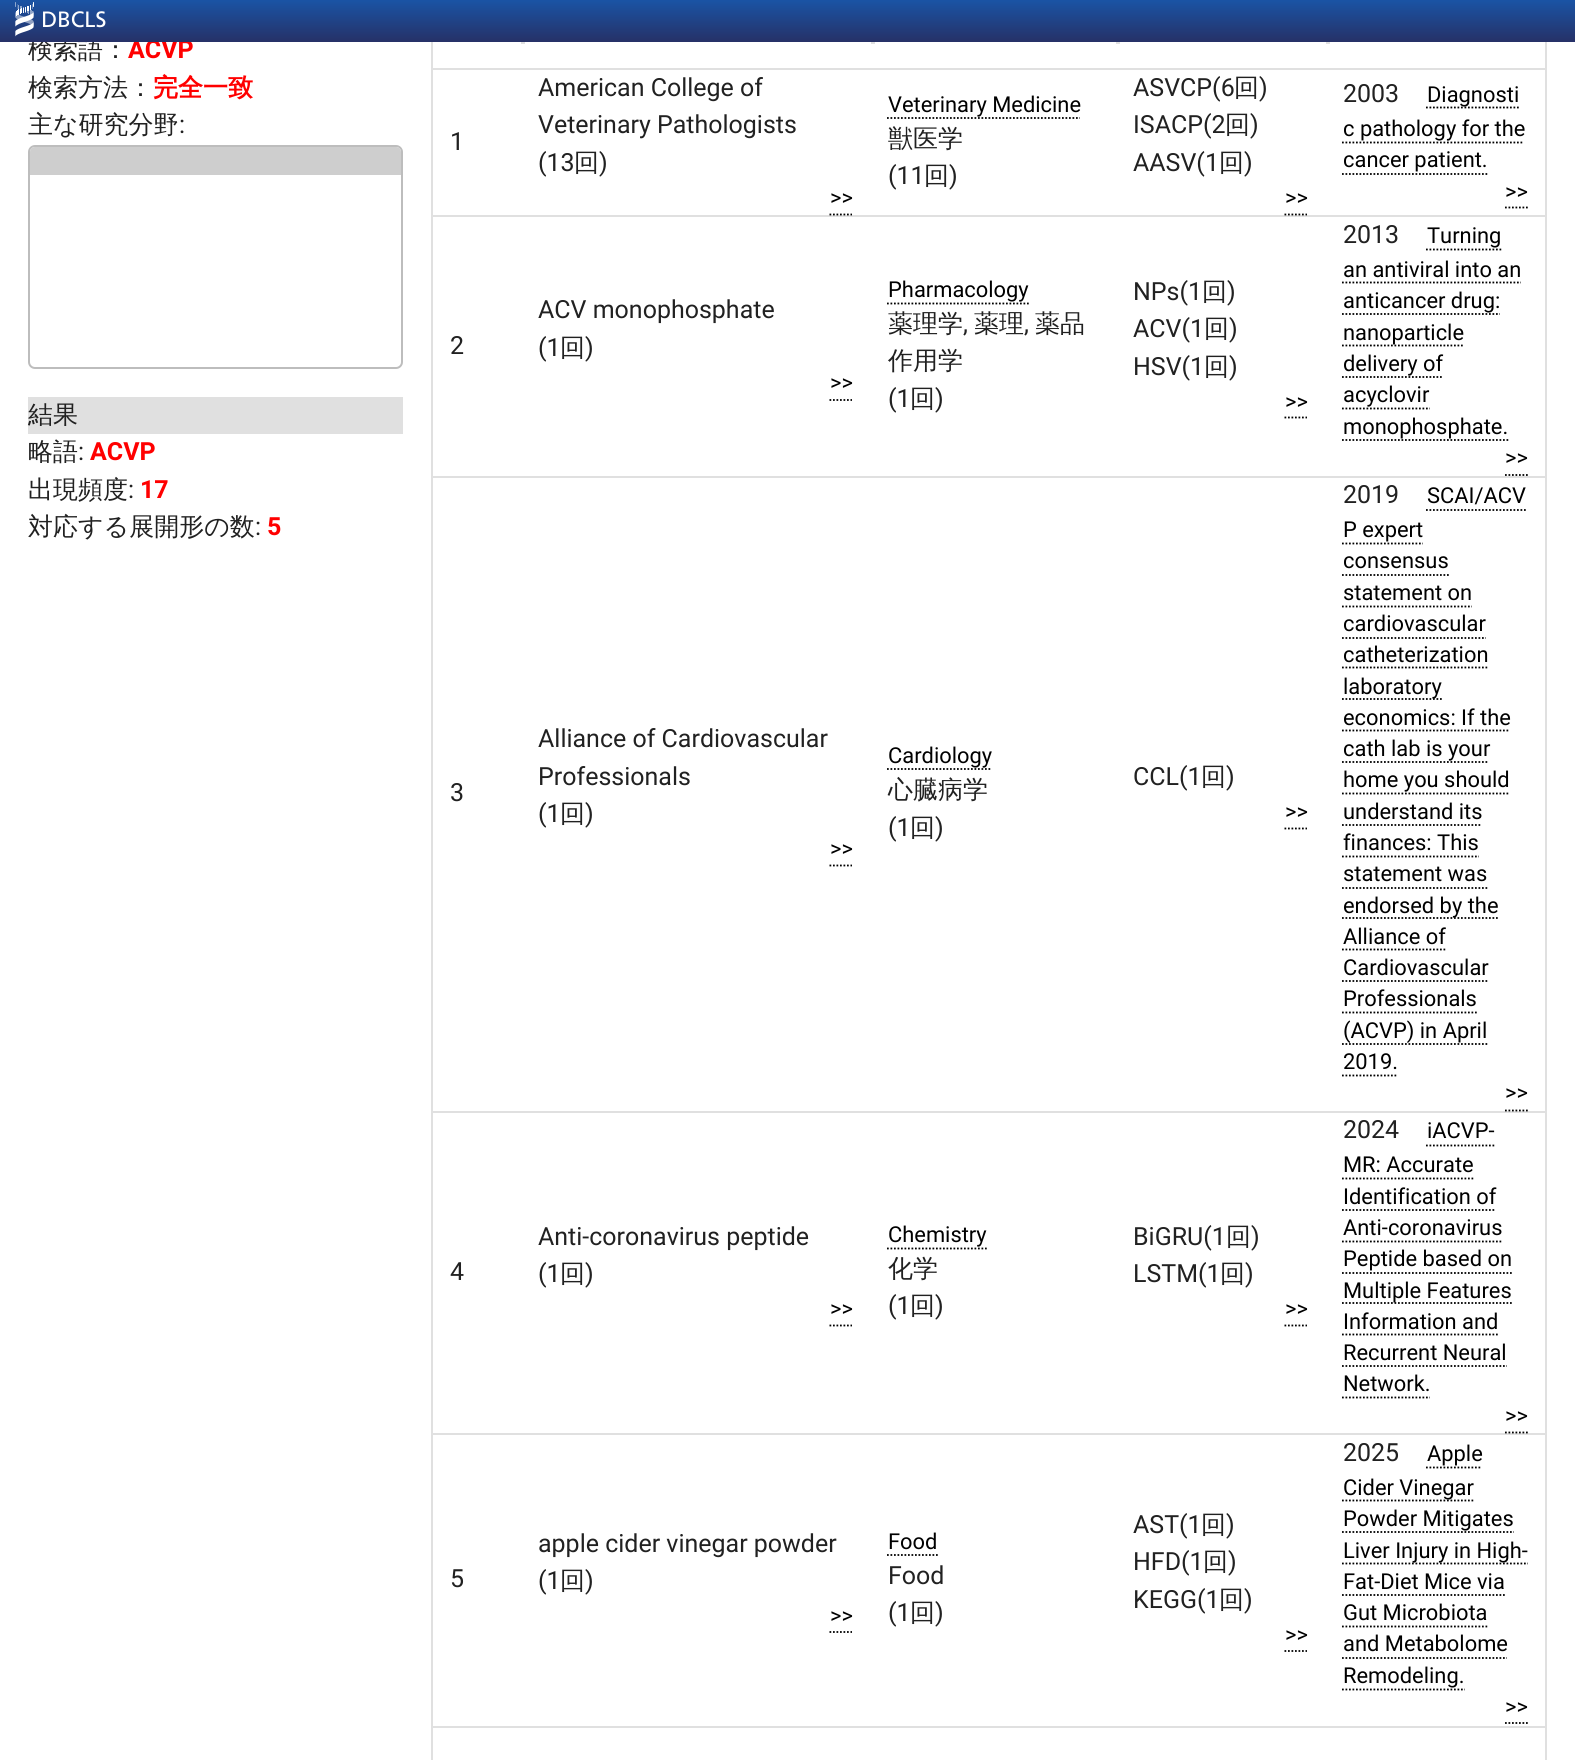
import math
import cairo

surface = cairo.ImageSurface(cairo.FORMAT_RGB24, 1575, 1760)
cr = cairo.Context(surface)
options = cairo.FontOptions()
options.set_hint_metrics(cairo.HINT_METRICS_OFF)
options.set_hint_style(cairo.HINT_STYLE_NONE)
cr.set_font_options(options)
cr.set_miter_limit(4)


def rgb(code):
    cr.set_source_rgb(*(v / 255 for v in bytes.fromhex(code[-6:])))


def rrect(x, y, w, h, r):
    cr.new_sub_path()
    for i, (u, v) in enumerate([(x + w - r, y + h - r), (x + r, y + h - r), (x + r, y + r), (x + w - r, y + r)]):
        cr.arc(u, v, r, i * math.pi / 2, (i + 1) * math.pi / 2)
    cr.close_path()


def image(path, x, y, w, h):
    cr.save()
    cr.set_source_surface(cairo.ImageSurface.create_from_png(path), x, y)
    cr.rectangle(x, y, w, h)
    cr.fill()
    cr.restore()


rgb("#ffffff")
cr.paint()
rrect(29, 146, 373, 222, 6)
rgb("#bdbdbd")
cr.stroke()
rgb("#cecece")
cr.new_path()
cr.move_to(35, 147)
cr.line_to(396, 147)
cr.curve_to(399, 147, 401, 149, 401, 152)
cr.line_to(401, 175)
cr.line_to(30, 175)
cr.line_to(30, 152)
cr.curve_to(30, 149, 32, 147, 35, 147)
cr.close_path()
cr.fill()
rgb("#e0e0e0")
cr.rectangle(28, 397, 375, 37)
cr.fill()
cr.rectangle(432, -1, 1114, 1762)
cr.stroke()
for x, y, w, h, color in [
    (432, 68, 1113, 2, "#e0e0e0"),
    (521, 42, 4, 2, "#e0e0e0"),
    (871, 42, 4, 2, "#e0e0e0"),
    (1116, 42, 4, 2, "#e0e0e0"),
    (1326, 42, 4, 2, "#e0e0e0"),
    (432, 215, 1113, 2, "#e0e0e0"),
]:
    rgb(color)
    cr.rectangle(x, y, w, h)
    cr.fill()
cr.new_path()
cr.move_to(829.5, 214.5)
cr.line_to(852, 214.5)
rgb("#000000")
cr.set_line_width(1.8)
cr.set_dash([1.75, 1.75])
cr.stroke()
cr.new_path()
cr.move_to(887, 118)
cr.line_to(1080, 118)
cr.stroke()
cr.new_path()
cr.move_to(1284.5, 214.5)
cr.line_to(1307, 214.5)
cr.stroke()
cr.new_path()
cr.move_to(1426, 107.5)
cr.line_to(1519, 107.5)
cr.stroke()
cr.new_path()
cr.move_to(1342, 142.5)
cr.line_to(1524, 142.5)
cr.stroke()
cr.new_path()
cr.move_to(1342, 174)
cr.line_to(1487.5, 174)
cr.stroke()
cr.new_path()
cr.move_to(1505, 207.5)
cr.line_to(1528, 207.5)
cr.stroke()
rgb("#e0e0e0")
cr.rectangle(432, 476, 1113, 2)
cr.fill()
cr.new_path()
cr.move_to(829.5, 400)
cr.line_to(852, 400)
rgb("#000000")
cr.stroke()
cr.new_path()
cr.move_to(887, 303.5)
cr.line_to(1029, 303.5)
cr.stroke()
cr.new_path()
cr.move_to(1284.5, 417.5)
cr.line_to(1307, 417.5)
cr.stroke()
cr.new_path()
cr.move_to(1426, 249.5)
cr.line_to(1501.5, 249.5)
cr.stroke()
cr.new_path()
cr.move_to(1342, 282.5)
cr.line_to(1521, 282.5)
cr.stroke()
cr.new_path()
cr.move_to(1342, 314)
cr.line_to(1500, 314)
cr.stroke()
cr.new_path()
cr.move_to(1342, 345.5)
cr.line_to(1463, 345.5)
cr.stroke()
cr.new_path()
cr.move_to(1342, 377)
cr.line_to(1442, 377)
cr.stroke()
cr.new_path()
cr.move_to(1342, 408.5)
cr.line_to(1430, 408.5)
cr.stroke()
cr.new_path()
cr.move_to(1342, 440)
cr.line_to(1508.5, 440)
cr.stroke()
cr.new_path()
cr.move_to(1505, 475)
cr.line_to(1528, 475)
cr.stroke()
rgb("#e0e0e0")
cr.rectangle(432, 1111, 1113, 2)
cr.fill()
cr.new_path()
cr.move_to(829.5, 865.5)
cr.line_to(852, 865.5)
rgb("#000000")
cr.stroke()
cr.new_path()
cr.move_to(887, 769)
cr.line_to(992, 769)
cr.stroke()
cr.new_path()
cr.move_to(1284.5, 828.5)
cr.line_to(1307, 828.5)
cr.stroke()
cr.new_path()
cr.move_to(1426, 510)
cr.line_to(1526, 510)
cr.stroke()
cr.new_path()
cr.move_to(1342, 543.5)
cr.line_to(1423, 543.5)
cr.stroke()
cr.new_path()
cr.move_to(1342, 575)
cr.line_to(1449, 575)
cr.stroke()
cr.new_path()
cr.move_to(1342, 606.5)
cr.line_to(1472, 606.5)
cr.stroke()
cr.new_path()
cr.move_to(1342, 638)
cr.line_to(1486, 638)
cr.stroke()
cr.new_path()
cr.move_to(1342, 667.5)
cr.line_to(1487.5, 667.5)
cr.stroke()
cr.new_path()
cr.move_to(1342, 699)
cr.line_to(1442, 699)
cr.stroke()
cr.new_path()
cr.move_to(1342, 730.5)
cr.line_to(1510, 730.5)
cr.stroke()
cr.new_path()
cr.move_to(1342, 762)
cr.line_to(1489, 762)
cr.stroke()
cr.new_path()
cr.move_to(1342, 793.5)
cr.line_to(1508.5, 793.5)
cr.stroke()
cr.new_path()
cr.move_to(1342, 825)
cr.line_to(1482, 825)
cr.stroke()
cr.new_path()
cr.move_to(1342, 856.5)
cr.line_to(1479, 856.5)
cr.stroke()
cr.new_path()
cr.move_to(1342, 888)
cr.line_to(1487.5, 888)
cr.stroke()
cr.new_path()
cr.move_to(1342, 918)
cr.line_to(1498, 918)
cr.stroke()
cr.new_path()
cr.move_to(1342, 949.5)
cr.line_to(1445.5, 949.5)
cr.stroke()
cr.new_path()
cr.move_to(1342, 981)
cr.line_to(1487.5, 981)
cr.stroke()
cr.new_path()
cr.move_to(1342, 1012.5)
cr.line_to(1477, 1012.5)
cr.stroke()
cr.new_path()
cr.move_to(1342, 1044)
cr.line_to(1487.5, 1044)
cr.stroke()
cr.new_path()
cr.move_to(1342, 1075.5)
cr.line_to(1398, 1075.5)
cr.stroke()
cr.new_path()
cr.move_to(1505, 1110.5)
cr.line_to(1528, 1110.5)
cr.stroke()
rgb("#e0e0e0")
cr.rectangle(432, 1433, 1113, 2)
cr.fill()
cr.new_path()
cr.move_to(829.5, 1325.5)
cr.line_to(852, 1325.5)
rgb("#000000")
cr.stroke()
cr.new_path()
cr.move_to(887, 1248.5)
cr.line_to(987, 1248.5)
cr.stroke()
cr.new_path()
cr.move_to(1284.5, 1325.5)
cr.line_to(1307, 1325.5)
cr.stroke()
cr.new_path()
cr.move_to(1426, 1145.5)
cr.line_to(1494.5, 1145.5)
cr.stroke()
cr.new_path()
cr.move_to(1342, 1178.5)
cr.line_to(1473.5, 1178.5)
cr.stroke()
cr.new_path()
cr.move_to(1342, 1210)
cr.line_to(1496, 1210)
cr.stroke()
cr.new_path()
cr.move_to(1342, 1241.5)
cr.line_to(1501.5, 1241.5)
cr.stroke()
cr.new_path()
cr.move_to(1342, 1273)
cr.line_to(1512, 1273)
cr.stroke()
cr.new_path()
cr.move_to(1342, 1303)
cr.line_to(1512, 1303)
cr.stroke()
cr.new_path()
cr.move_to(1342, 1334.5)
cr.line_to(1498, 1334.5)
cr.stroke()
cr.new_path()
cr.move_to(1342, 1366)
cr.line_to(1507, 1366)
cr.stroke()
cr.new_path()
cr.move_to(1342, 1397.5)
cr.line_to(1430, 1397.5)
cr.stroke()
cr.new_path()
cr.move_to(1505, 1432.5)
cr.line_to(1528, 1432.5)
cr.stroke()
cr.new_path()
cr.move_to(829.5, 1632)
cr.line_to(852, 1632)
cr.stroke()
cr.new_path()
cr.move_to(887, 1555)
cr.line_to(938, 1555)
cr.stroke()
cr.new_path()
cr.move_to(1284.5, 1651)
cr.line_to(1307, 1651)
cr.stroke()
cr.new_path()
cr.move_to(1426, 1467.5)
cr.line_to(1482, 1467.5)
cr.stroke()
cr.new_path()
cr.move_to(1342, 1500.5)
cr.line_to(1473.5, 1500.5)
cr.stroke()
cr.new_path()
cr.move_to(1342, 1532)
cr.line_to(1514, 1532)
cr.stroke()
cr.new_path()
cr.move_to(1342, 1563.5)
cr.line_to(1528, 1563.5)
cr.stroke()
cr.new_path()
cr.move_to(1342, 1595)
cr.line_to(1505, 1595)
cr.stroke()
cr.new_path()
cr.move_to(1342, 1626.5)
cr.line_to(1487.5, 1626.5)
cr.stroke()
cr.new_path()
cr.move_to(1342, 1658)
cr.line_to(1507, 1658)
cr.stroke()
cr.new_path()
cr.move_to(1342, 1689.5)
cr.line_to(1465, 1689.5)
cr.stroke()
cr.new_path()
cr.move_to(1505, 1723)
cr.line_to(1528, 1723)
cr.stroke()
rgb("#e0e0e0")
cr.rectangle(432, 1726, 1113, 2)
cr.fill()
cr.select_font_face("WenQuanYi Zen Hei Medium")
cr.set_font_size(25)
rgb("#212121")
cr.move_to(28, 58)
cr.show_text("検索語：")
cr.select_font_face("Roboto", cairo.FONT_SLANT_NORMAL, cairo.FONT_WEIGHT_BOLD)
rgb("#ff0000")
cr.move_to(128, 58)
cr.show_text("ACVP")
gradient = cairo.LinearGradient(788, 0, 788, 42)
gradient.add_color_stop_rgba(0, 0.102, 0.329, 0.647, 1)
gradient.add_color_stop_rgba(1, 0.149, 0.192, 0.404, 1)
cr.set_source(gradient)
cr.rectangle(0, 0, 1575, 42)
cr.fill()
image("img/1.png", 15, 2, 91, 35)
cr.select_font_face("WenQuanYi Zen Hei Medium")
rgb("#212121")
cr.move_to(28, 96)
cr.show_text("検索方法：")
cr.select_font_face("WenQuanYi Zen Hei", cairo.FONT_SLANT_NORMAL, cairo.FONT_WEIGHT_BOLD)
rgb("#ff0000")
cr.move_to(153, 96)
cr.show_text("完全一致")
cr.select_font_face("WenQuanYi Zen Hei Medium")
rgb("#212121")
cr.move_to(28, 133)
cr.show_text("主な研究分野")
cr.select_font_face("Roboto")
cr.move_to(179, 133)
cr.show_text(":")
cr.select_font_face("WenQuanYi Zen Hei Medium")
cr.move_to(28, 423)
cr.show_text("結果")
cr.move_to(28, 460)
cr.show_text("略語")
cr.select_font_face("Roboto")
cr.move_to(78, 460)
cr.show_text(":")
cr.select_font_face("Roboto", cairo.FONT_SLANT_NORMAL, cairo.FONT_WEIGHT_BOLD)
rgb("#ff0000")
cr.move_to(90, 460)
cr.show_text("ACVP")
cr.select_font_face("WenQuanYi Zen Hei Medium")
rgb("#212121")
cr.move_to(28, 498)
cr.show_text("出現頻度")
cr.select_font_face("Roboto")
cr.move_to(128, 498)
cr.show_text(":")
cr.select_font_face("Roboto", cairo.FONT_SLANT_NORMAL, cairo.FONT_WEIGHT_BOLD)
rgb("#ff0000")
cr.move_to(140, 498)
cr.show_text("17")
cr.select_font_face("WenQuanYi Zen Hei Medium")
rgb("#212121")
cr.move_to(28, 535)
cr.show_text("対応する展開形の数")
cr.select_font_face("Roboto")
cr.move_to(255, 535)
cr.show_text(":")
cr.select_font_face("Roboto", cairo.FONT_SLANT_NORMAL, cairo.FONT_WEIGHT_BOLD)
rgb("#ff0000")
cr.move_to(267, 535)
cr.show_text("5")
cr.select_font_face("Roboto")
rgb("#212121")
for x, y, s in [
    (450, 150, "1"),
    (538, 96, "American College of"),
    (538, 133, "Veterinary Pathologists"),
    (538, 171, "(13"),
]:
    cr.move_to(x, y)
    cr.show_text(s)
cr.select_font_face("WenQuanYi Zen Hei Medium")
cr.move_to(574, 171)
cr.show_text("回")
cr.select_font_face("Roboto")
cr.move_to(599, 171)
cr.show_text(")")
cr.set_font_size(21.9)
rgb("#000000")
cr.move_to(830, 205)
cr.show_text(">>")
cr.move_to(888, 112)
cr.show_text("Veterinary Medicine")
cr.select_font_face("WenQuanYi Zen Hei Medium")
cr.set_font_size(25)
rgb("#212121")
cr.move_to(888, 147)
cr.show_text("獣医学")
cr.select_font_face("Roboto")
cr.move_to(888, 184)
cr.show_text("(11")
cr.select_font_face("WenQuanYi Zen Hei Medium")
cr.move_to(924, 184)
cr.show_text("回")
cr.select_font_face("Roboto")
cr.move_to(949, 184)
cr.show_text(")")
cr.move_to(1133, 96)
cr.show_text("ASVCP(6")
cr.select_font_face("WenQuanYi Zen Hei Medium")
cr.move_to(1234, 96)
cr.show_text("回")
cr.select_font_face("Roboto")
cr.move_to(1259, 96)
cr.show_text(")")
cr.move_to(1133, 133)
cr.show_text("ISACP(2")
cr.select_font_face("WenQuanYi Zen Hei Medium")
cr.move_to(1225, 133)
cr.show_text("回")
cr.select_font_face("Roboto")
cr.move_to(1250, 133)
cr.show_text(")")
cr.move_to(1133, 171)
cr.show_text("AASV(1")
cr.select_font_face("WenQuanYi Zen Hei Medium")
cr.move_to(1219, 171)
cr.show_text("回")
cr.select_font_face("Roboto")
cr.move_to(1244, 171)
cr.show_text(")")
cr.set_font_size(21.9)
rgb("#000000")
cr.move_to(1285, 205)
cr.show_text(">>")
cr.set_font_size(25)
rgb("#212121")
cr.move_to(1343, 102)
cr.show_text("2003")
cr.set_font_size(21.9)
rgb("#000000")
for x, y, s in [
    (1427, 102, "Diagnosti"),
    (1343, 136, "c pathology for the"),
    (1343, 167, "cancer patient."),
    (1505, 199, ">>"),
]:
    cr.move_to(x, y)
    cr.show_text(s)
cr.set_font_size(25)
rgb("#212121")
for x, y, s in [
    (450, 354, "2"),
    (538, 318, "ACV monophosphate"),
    (538, 356, "(1"),
]:
    cr.move_to(x, y)
    cr.show_text(s)
cr.select_font_face("WenQuanYi Zen Hei Medium")
cr.move_to(560, 356)
cr.show_text("回")
cr.select_font_face("Roboto")
cr.move_to(585, 356)
cr.show_text(")")
cr.set_font_size(21.9)
rgb("#000000")
cr.move_to(830, 390)
cr.show_text(">>")
cr.move_to(888, 297)
cr.show_text("Pharmacology")
cr.select_font_face("WenQuanYi Zen Hei Medium")
cr.set_font_size(25)
rgb("#212121")
cr.move_to(888, 332)
cr.show_text("薬理学")
cr.select_font_face("Roboto")
cr.move_to(963, 332)
cr.show_text(",")
cr.select_font_face("WenQuanYi Zen Hei Medium")
cr.move_to(974, 332)
cr.show_text("薬理")
cr.select_font_face("Roboto")
cr.move_to(1024, 332)
cr.show_text(",")
cr.select_font_face("WenQuanYi Zen Hei Medium")
cr.move_to(1035, 332)
cr.show_text("薬品")
cr.move_to(888, 369)
cr.show_text("作用学")
cr.select_font_face("Roboto")
cr.move_to(888, 407)
cr.show_text("(1")
cr.select_font_face("WenQuanYi Zen Hei Medium")
cr.move_to(910, 407)
cr.show_text("回")
cr.select_font_face("Roboto")
cr.move_to(935, 407)
cr.show_text(")")
cr.move_to(1133, 300)
cr.show_text("NPs(1")
cr.select_font_face("WenQuanYi Zen Hei Medium")
cr.move_to(1202, 300)
cr.show_text("回")
cr.select_font_face("Roboto")
cr.move_to(1227, 300)
cr.show_text(")")
cr.move_to(1133, 337)
cr.show_text("ACV(1")
cr.select_font_face("WenQuanYi Zen Hei Medium")
cr.move_to(1204, 337)
cr.show_text("回")
cr.select_font_face("Roboto")
cr.move_to(1229, 337)
cr.show_text(")")
cr.move_to(1133, 375)
cr.show_text("HSV(1")
cr.select_font_face("WenQuanYi Zen Hei Medium")
cr.move_to(1204, 375)
cr.show_text("回")
cr.select_font_face("Roboto")
cr.move_to(1229, 375)
cr.show_text(")")
cr.set_font_size(21.9)
rgb("#000000")
cr.move_to(1285, 409)
cr.show_text(">>")
cr.set_font_size(25)
rgb("#212121")
cr.move_to(1343, 243)
cr.show_text("2013")
cr.set_font_size(21.9)
rgb("#000000")
for x, y, s in [
    (1427, 243, "Turning"),
    (1343, 277, "an antiviral into an"),
    (1343, 308, "anticancer drug:"),
    (1343, 340, "nanoparticle"),
    (1343, 371, "delivery of"),
    (1343, 402, "acyclovir"),
    (1343, 434, "monophosphate."),
    (1505, 465, ">>"),
]:
    cr.move_to(x, y)
    cr.show_text(s)
cr.set_font_size(25)
rgb("#212121")
for x, y, s in [
    (450, 801, "3"),
    (538, 747, "Alliance of Cardiovascular"),
    (538, 785, "Professionals"),
    (538, 822, "(1"),
]:
    cr.move_to(x, y)
    cr.show_text(s)
cr.select_font_face("WenQuanYi Zen Hei Medium")
cr.move_to(560, 822)
cr.show_text("回")
cr.select_font_face("Roboto")
cr.move_to(585, 822)
cr.show_text(")")
cr.set_font_size(21.9)
rgb("#000000")
cr.move_to(830, 856)
cr.show_text(">>")
cr.move_to(888, 763)
cr.show_text("Cardiology")
cr.select_font_face("WenQuanYi Zen Hei Medium")
cr.set_font_size(25)
rgb("#212121")
cr.move_to(888, 798)
cr.show_text("心臓病学")
cr.select_font_face("Roboto")
cr.move_to(888, 836)
cr.show_text("(1")
cr.select_font_face("WenQuanYi Zen Hei Medium")
cr.move_to(910, 836)
cr.show_text("回")
cr.select_font_face("Roboto")
cr.move_to(935, 836)
cr.show_text(")")
cr.move_to(1133, 785)
cr.show_text("CCL(1")
cr.select_font_face("WenQuanYi Zen Hei Medium")
cr.move_to(1201, 785)
cr.show_text("回")
cr.select_font_face("Roboto")
cr.move_to(1226, 785)
cr.show_text(")")
cr.set_font_size(21.9)
rgb("#000000")
cr.move_to(1285, 819)
cr.show_text(">>")
cr.set_font_size(25)
rgb("#212121")
cr.move_to(1343, 503)
cr.show_text("2019")
cr.set_font_size(21.9)
rgb("#000000")
for x, y, s in [
    (1427, 503, "SCAI/ACV"),
    (1343, 537, "P expert"),
    (1343, 568, "consensus"),
    (1343, 600, "statement on"),
    (1343, 631, "cardiovascular"),
    (1343, 662, "catheterization"),
    (1343, 694, "laboratory"),
    (1343, 725, "economics: If the"),
    (1343, 756, "cath lab is your"),
    (1343, 787, "home you should"),
    (1343, 819, "understand its"),
    (1343, 850, "finances: This"),
    (1343, 881, "statement was"),
    (1343, 913, "endorsed by the"),
    (1343, 944, "Alliance of"),
    (1343, 975, "Cardiovascular"),
    (1343, 1006, "Professionals"),
    (1343, 1038, "(ACVP) in April"),
    (1343, 1069, "2019."),
    (1505, 1100, ">>"),
]:
    cr.move_to(x, y)
    cr.show_text(s)
cr.set_font_size(25)
rgb("#212121")
for x, y, s in [
    (450, 1280, "4"),
    (538, 1245, "Anti-coronavirus peptide"),
    (538, 1282, "(1"),
]:
    cr.move_to(x, y)
    cr.show_text(s)
cr.select_font_face("WenQuanYi Zen Hei Medium")
cr.move_to(560, 1282)
cr.show_text("回")
cr.select_font_face("Roboto")
cr.move_to(585, 1282)
cr.show_text(")")
cr.set_font_size(21.9)
rgb("#000000")
cr.move_to(830, 1316)
cr.show_text(">>")
cr.move_to(888, 1242)
cr.show_text("Chemistry")
cr.select_font_face("WenQuanYi Zen Hei Medium")
cr.set_font_size(25)
rgb("#212121")
cr.move_to(888, 1277)
cr.show_text("化学")
cr.select_font_face("Roboto")
cr.move_to(888, 1314)
cr.show_text("(1")
cr.select_font_face("WenQuanYi Zen Hei Medium")
cr.move_to(910, 1314)
cr.show_text("回")
cr.select_font_face("Roboto")
cr.move_to(935, 1314)
cr.show_text(")")
cr.move_to(1133, 1245)
cr.show_text("BiGRU(1")
cr.select_font_face("WenQuanYi Zen Hei Medium")
cr.move_to(1226, 1245)
cr.show_text("回")
cr.select_font_face("Roboto")
cr.move_to(1251, 1245)
cr.show_text(")")
cr.move_to(1133, 1282)
cr.show_text("LSTM(1")
cr.select_font_face("WenQuanYi Zen Hei Medium")
cr.move_to(1220, 1282)
cr.show_text("回")
cr.select_font_face("Roboto")
cr.move_to(1245, 1282)
cr.show_text(")")
cr.set_font_size(21.9)
rgb("#000000")
cr.move_to(1285, 1316)
cr.show_text(">>")
cr.set_font_size(25)
rgb("#212121")
cr.move_to(1343, 1138)
cr.show_text("2024")
cr.set_font_size(21.9)
rgb("#000000")
for x, y, s in [
    (1427, 1138, "iACVP-"),
    (1343, 1172, "MR: Accurate"),
    (1343, 1204, "Identification of"),
    (1343, 1235, "Anti-coronavirus"),
    (1343, 1266, "Peptide based on"),
    (1343, 1298, "Multiple Features"),
    (1343, 1329, "Information and"),
    (1343, 1360, "Recurrent Neural"),
    (1343, 1391, "Network."),
    (1505, 1423, ">>"),
]:
    cr.move_to(x, y)
    cr.show_text(s)
cr.set_font_size(25)
rgb("#212121")
for x, y, s in [
    (450, 1587, "5"),
    (538, 1552, "apple cider vinegar powder"),
    (538, 1589, "(1"),
]:
    cr.move_to(x, y)
    cr.show_text(s)
cr.select_font_face("WenQuanYi Zen Hei Medium")
cr.move_to(560, 1589)
cr.show_text("回")
cr.select_font_face("Roboto")
cr.move_to(585, 1589)
cr.show_text(")")
cr.set_font_size(21.9)
rgb("#000000")
cr.move_to(830, 1623)
cr.show_text(">>")
cr.move_to(888, 1549)
cr.show_text("Food")
cr.set_font_size(25)
rgb("#212121")
cr.move_to(888, 1584)
cr.show_text("Food")
cr.move_to(888, 1621)
cr.show_text("(1")
cr.select_font_face("WenQuanYi Zen Hei Medium")
cr.move_to(910, 1621)
cr.show_text("回")
cr.select_font_face("Roboto")
cr.move_to(935, 1621)
cr.show_text(")")
cr.move_to(1133, 1533)
cr.show_text("AST(1")
cr.select_font_face("WenQuanYi Zen Hei Medium")
cr.move_to(1201, 1533)
cr.show_text("回")
cr.select_font_face("Roboto")
cr.move_to(1226, 1533)
cr.show_text(")")
cr.move_to(1133, 1570)
cr.show_text("HFD(1")
cr.select_font_face("WenQuanYi Zen Hei Medium")
cr.move_to(1203, 1570)
cr.show_text("回")
cr.select_font_face("Roboto")
cr.move_to(1228, 1570)
cr.show_text(")")
cr.move_to(1133, 1608)
cr.show_text("KEGG(1")
cr.select_font_face("WenQuanYi Zen Hei Medium")
cr.move_to(1219, 1608)
cr.show_text("回")
cr.select_font_face("Roboto")
cr.move_to(1244, 1608)
cr.show_text(")")
cr.set_font_size(21.9)
rgb("#000000")
cr.move_to(1285, 1642)
cr.show_text(">>")
cr.set_font_size(25)
rgb("#212121")
cr.move_to(1343, 1461)
cr.show_text("2025")
cr.set_font_size(21.9)
rgb("#000000")
for x, y, s in [
    (1427, 1461, "Apple"),
    (1343, 1495, "Cider Vinegar"),
    (1343, 1526, "Powder Mitigates"),
    (1343, 1558, "Liver Injury in High-"),
    (1343, 1589, "Fat-Diet Mice via"),
    (1343, 1620, "Gut Microbiota"),
    (1343, 1651, "and Metabolome"),
    (1343, 1683, "Remodeling."),
    (1505, 1714, ">>"),
]:
    cr.move_to(x, y)
    cr.show_text(s)
surface.write_to_png("page.png")
